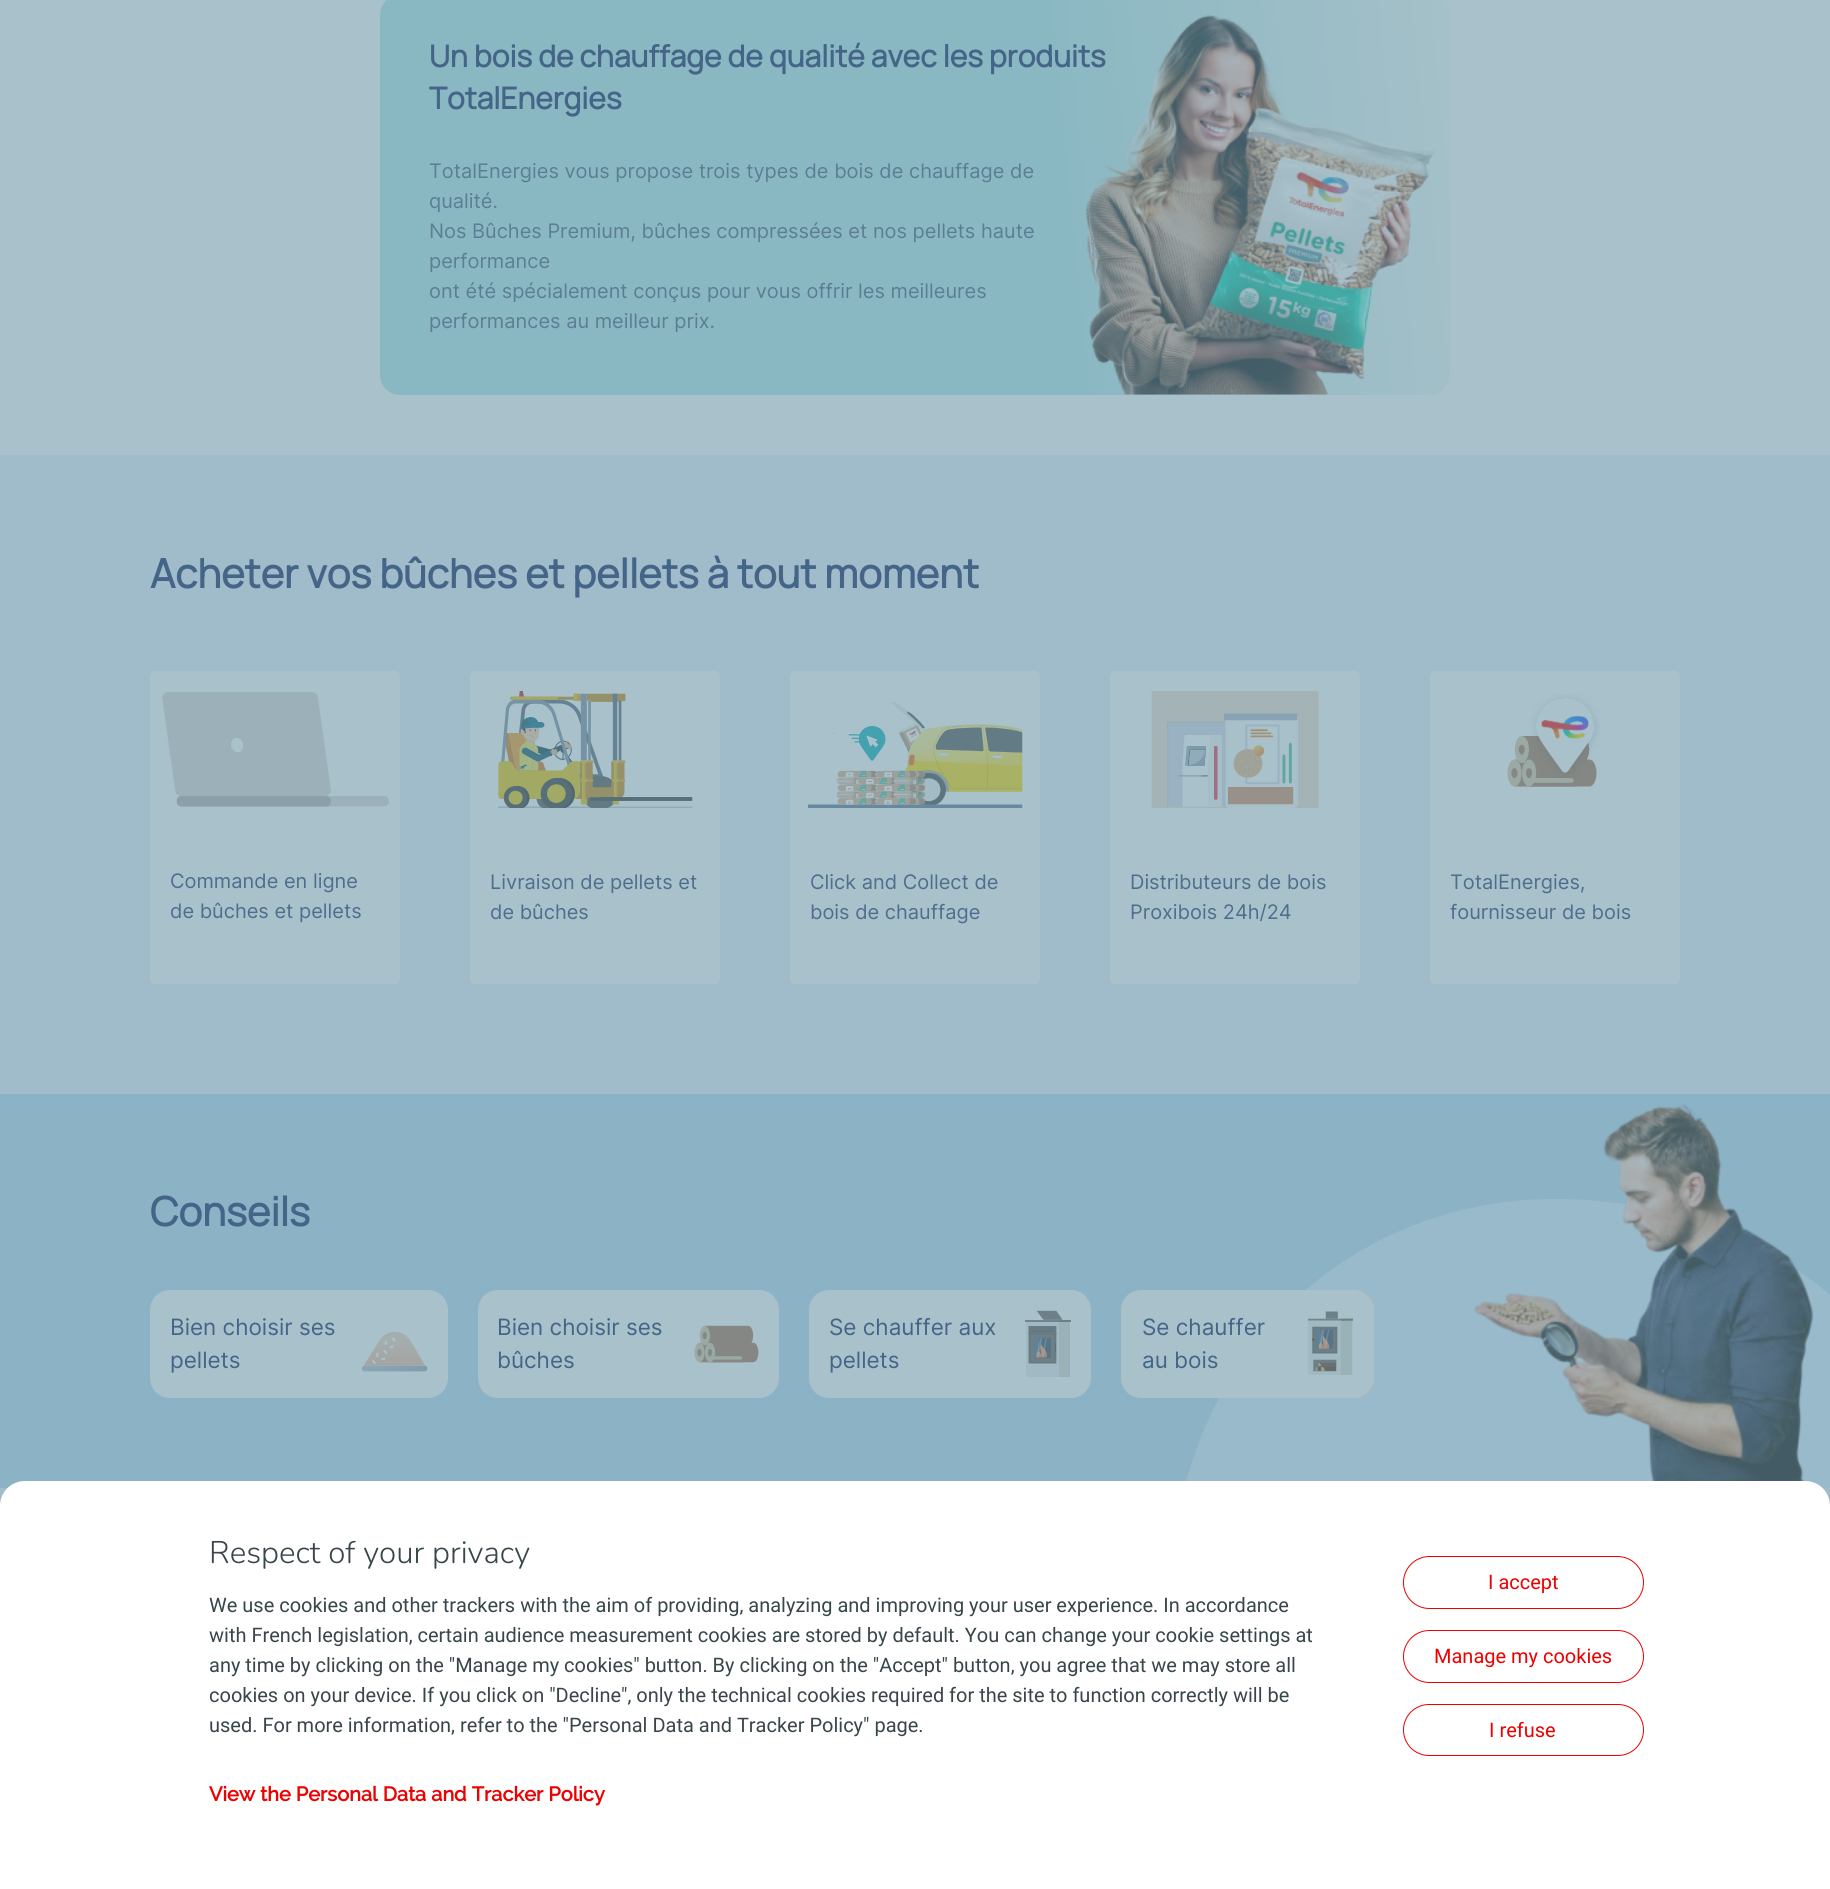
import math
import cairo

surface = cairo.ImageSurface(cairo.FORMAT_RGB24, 1830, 1889)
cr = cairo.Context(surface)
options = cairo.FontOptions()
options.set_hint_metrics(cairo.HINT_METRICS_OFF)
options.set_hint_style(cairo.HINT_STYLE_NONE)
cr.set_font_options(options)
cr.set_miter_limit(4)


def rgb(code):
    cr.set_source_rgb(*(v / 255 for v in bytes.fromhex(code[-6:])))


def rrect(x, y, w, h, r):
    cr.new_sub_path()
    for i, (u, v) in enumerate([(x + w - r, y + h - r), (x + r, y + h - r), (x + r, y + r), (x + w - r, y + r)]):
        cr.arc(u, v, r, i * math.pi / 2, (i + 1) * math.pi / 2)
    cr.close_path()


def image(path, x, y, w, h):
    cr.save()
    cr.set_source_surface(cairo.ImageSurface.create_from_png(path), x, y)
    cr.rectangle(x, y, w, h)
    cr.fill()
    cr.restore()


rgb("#a9c1ca")
cr.paint()
gradient = cairo.LinearGradient(365, 250, 1524, 134)
gradient.add_color_stop_rgba(0.6, 0.541, 0.722, 0.761, 1)
gradient.add_color_stop_rgba(1, 0.663, 0.757, 0.792, 1)
cr.set_source(gradient)
rrect(380, -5, 1070, 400, 20)
cr.fill()
rgb("#a0bbca")
cr.rectangle(0, 455, 1830, 639)
cr.fill()
rgb("#a8c1ca")
rrect(150, 671, 250, 313, 5)
cr.fill()
image("img/2.png", 162, 692, 227, 115)
rrect(470, 671, 250, 313, 5)
cr.fill()
image("img/3.png", 498, 691, 195, 117)
rrect(790, 671, 250, 313, 5)
cr.fill()
image("img/4.png", 808, 702, 215, 106)
rrect(1110, 671, 250, 313, 5)
cr.fill()
image("img/5.png", 1151, 691, 168, 117)
rrect(1430, 671, 250, 313, 5)
cr.fill()
image("img/6.png", 1507, 694, 93, 93)
rgb("#8cb2c5")
cr.rectangle(0, 1094, 1830, 394)
cr.fill()
cr.save()
cr.rectangle(0, 1094, 1830, 394)
cr.clip()
rgb("#99baca")
cr.set_fill_rule(cairo.FILL_RULE_EVEN_ODD)
cr.new_path()
cr.move_to(1549, 1199)
cr.curve_to(1714, 1197, 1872, 1281, 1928, 1436)
cr.curve_to(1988, 1605, 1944, 1797, 1801, 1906)
cr.curve_to(1648, 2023, 1432, 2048, 1279, 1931)
cr.curve_to(1134, 1821, 1135, 1615, 1198, 1445)
cr.curve_to(1253, 1297, 1391, 1201, 1549, 1199)
cr.close_path()
cr.fill()
cr.restore()
image("img/7.png", 1473, 1104, 341, 378)
rgb("#a9c1ca")
rrect(150, 1290, 298, 108, 20)
cr.fill()
image("img/8.png", 361, 1331, 67, 41)
rrect(478, 1290, 301, 108, 20)
cr.fill()
image("img/9.png", 694, 1325, 65, 38)
rrect(809, 1290, 282, 108, 20)
cr.fill()
image("img/10.png", 1025, 1310, 46, 67)
rrect(1121, 1290, 253, 108, 20)
cr.fill()
image("img/11.png", 1308, 1311, 45, 64)
rgb("#a0bbca")
cr.rectangle(0, 1488, 1830, 18)
cr.fill()
rgb("#ffffff")
cr.new_path()
cr.move_to(25, 1481)
cr.line_to(1805, 1481)
cr.curve_to(1819, 1481, 1830, 1492, 1830, 1506)
cr.line_to(1830, 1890)
cr.line_to(0, 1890)
cr.line_to(0, 1506)
cr.curve_to(0, 1492, 11, 1481, 25, 1481)
cr.close_path()
cr.fill()
rrect(1403.5, 1556.5, 240, 52, 26)
rgb("#ed0000")
cr.set_line_width(1)
cr.stroke()
rrect(1403.5, 1630.5, 240, 52, 26)
cr.stroke()
rrect(1403.5, 1704.5, 240, 51, 25.5)
cr.stroke()
cr.select_font_face("Manrope", cairo.FONT_SLANT_NORMAL, cairo.FONT_WEIGHT_BOLD)
cr.set_font_size(30)
rgb("#446587")
cr.move_to(429, 67)
cr.show_text("Un bois de chauffage de qualité avec les produits")
cr.move_to(429, 109)
cr.show_text("TotalEnergies")
cr.select_font_face("Inter")
cr.set_font_size(20)
rgb("#5c7e94")
for x, y, s in [
    (429, 178, "TotalEnergies vous propose trois types de bois de chauffage de"),
    (429, 208, "qualité."),
    (429, 238, "Nos Bûches Premium, bûches compressées et nos pellets haute"),
    (429, 268, "performance"),
    (429, 298, "ont été spécialement conçus pour vous offrir les meilleures"),
    (429, 328, "performances au meilleur prix."),
]:
    cr.move_to(x, y)
    cr.show_text(s)
image("img/1.png", 1086, 14, 349, 381)
cr.select_font_face("Manrope", cairo.FONT_SLANT_NORMAL, cairo.FONT_WEIGHT_BOLD)
cr.set_font_size(40)
rgb("#446587")
cr.move_to(150, 588)
cr.show_text("Acheter vos bûches et pellets à tout moment")
cr.select_font_face("Inter")
cr.set_font_size(20)
rgb("#4e6e8e")
for x, y, s in [
    (170, 888, "Commande en ligne"),
    (170, 918, "de bûches et pellets"),
    (490, 889, "Livraison de pellets et"),
    (490, 919, "de bûches"),
    (810, 889, "Click and Collect de"),
    (810, 919, "bois de chauffage"),
    (1130, 889, "Distributeurs de bois"),
    (1130, 919, "Proxibois 24h/24"),
    (1450, 889, "TotalEnergies,"),
    (1450, 919, "fournisseur de bois"),
]:
    cr.move_to(x, y)
    cr.show_text(s)
cr.select_font_face("Manrope", cairo.FONT_SLANT_NORMAL, cairo.FONT_WEIGHT_BOLD)
cr.set_font_size(40)
rgb("#446587")
cr.move_to(150, 1226)
cr.show_text("Conseils")
cr.select_font_face("Inter")
cr.set_font_size(22.5)
for x, y, s in [
    (170, 1335, "Bien choisir ses"),
    (170, 1368, "pellets"),
    (497, 1335, "Bien choisir ses"),
    (497, 1368, "bûches"),
    (829, 1335, "Se chauffer aux"),
    (829, 1368, "pellets"),
    (1142, 1335, "Se chauffer"),
    (1142, 1368, "au bois"),
]:
    cr.move_to(x, y)
    cr.show_text(s)
cr.select_font_face("Nunito Light")
cr.set_font_size(31.25)
rgb("#374649")
cr.move_to(209, 1563)
cr.show_text("Respect of your privacy")
cr.select_font_face("Roboto")
cr.set_font_size(20)
for x, y, s in [
    (209, 1612, "We use cookies and other trackers with the aim of providing, analyzing and improving your user experience. In accordance"),
    (209, 1642, "with French legislation, certain audience measurement cookies are stored by default. You can change your cookie settings at"),
    (209, 1672, "any time by clicking on the \"Manage my cookies\" button. By clicking on the \"Accept\" button, you agree that we may store all"),
    (209, 1702, "cookies on your device. If you click on \"Decline\", only the technical cookies required for the site to function correctly will be"),
    (209, 1732, "used. For more information, refer to the \"Personal Data and Tracker Policy\" page."),
]:
    cr.move_to(x, y)
    cr.show_text(s)
rgb("#ed0000")
for x, y, s in [
    (1488, 1589, "I accept"),
    (1434, 1663, "Manage my cookies"),
    (1489, 1737, "I refuse"),
]:
    cr.move_to(x, y)
    cr.show_text(s)
cr.select_font_face("Raleway", cairo.FONT_SLANT_NORMAL, cairo.FONT_WEIGHT_BOLD)
cr.move_to(209, 1801)
cr.show_text("View the Personal Data and Tracker Policy")
surface.write_to_png("page.png")
